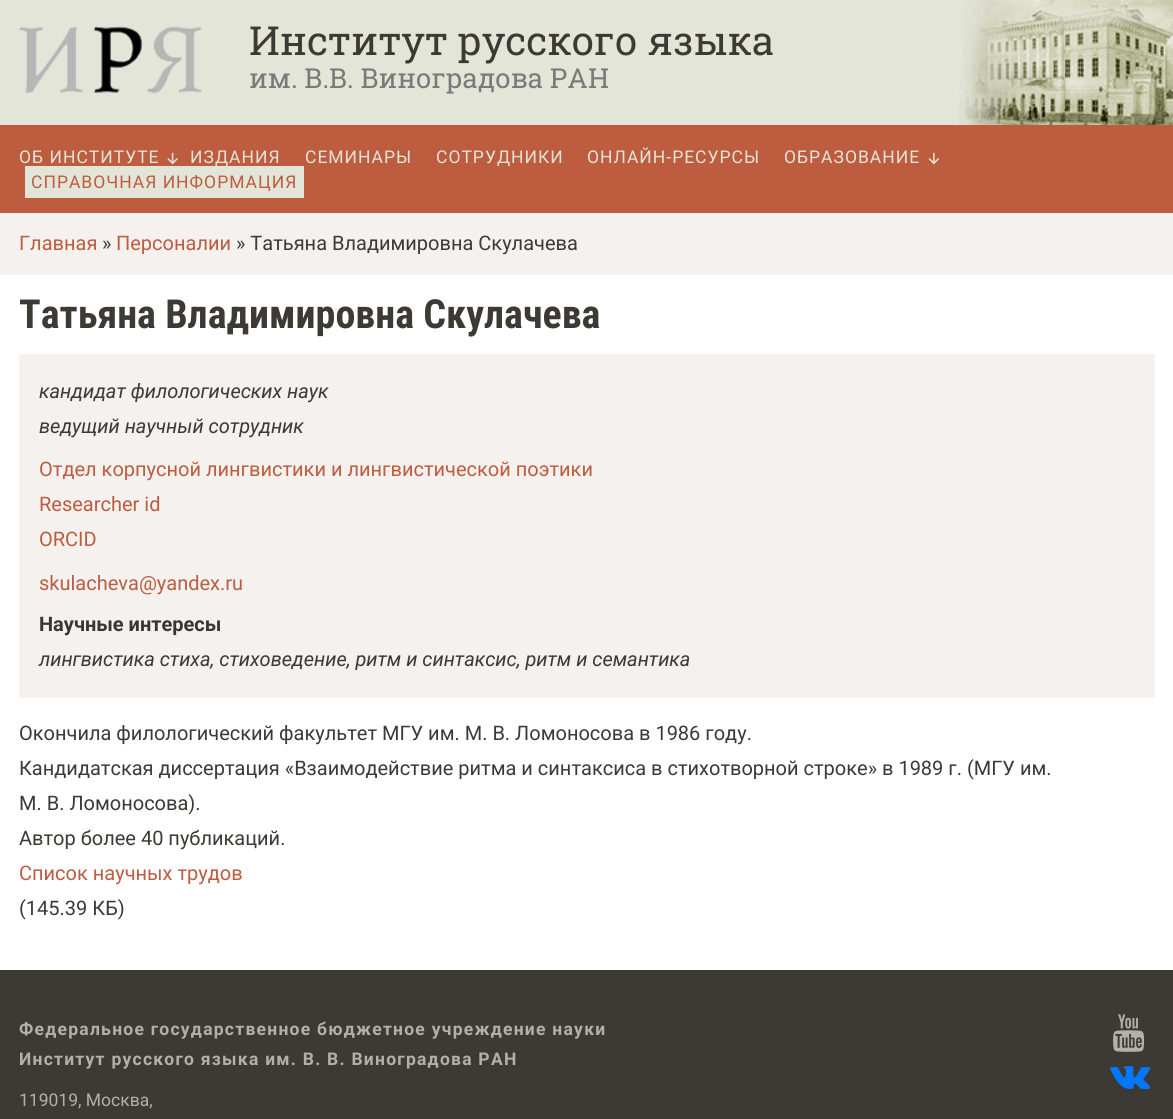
import math
import cairo

surface = cairo.ImageSurface(cairo.FORMAT_RGB24, 1173, 1119)
cr = cairo.Context(surface)
options = cairo.FontOptions()
options.set_hint_metrics(cairo.HINT_METRICS_OFF)
options.set_hint_style(cairo.HINT_STYLE_NONE)
cr.set_font_options(options)
cr.set_miter_limit(4)


def rgb(code):
    cr.set_source_rgb(*(v / 255 for v in bytes.fromhex(code[-6:])))


def tracked(x, y, s, letter, word):
    cr.move_to(x, y)
    for ch in s:
        cr.show_text(ch)
        cr.rel_move_to(letter + word * (ch == ' '), 0)


def image(path, x, y, w, h):
    cr.save()
    cr.set_source_surface(cairo.ImageSurface.create_from_png(path), x, y)
    cr.rectangle(x, y, w, h)
    cr.fill()
    cr.restore()


rgb("#ffffff")
cr.paint()
rgb("#e3e5d8")
cr.rectangle(0, 0, 959, 125)
cr.fill()
image("img/1.png", 19, 26, 183, 68)
image("img/2.png", 959, 0, 214, 125)
rgb("#bd5c3f")
cr.rectangle(0, 125, 1173, 88)
cr.fill()
image("img/3.png", 167, 152, 11, 13)
image("img/4.png", 928, 152, 11, 13)
for x, y, w, h, color in [
    (25, 166, 279, 32, "#e3e5d8"),
    (0, 213, 1173, 62, "#f5f1ee"),
    (19, 354, 1136, 344, "#f5f1ee"),
    (0, 970, 1173, 149, "#3d3935"),
]:
    rgb(color)
    cr.rectangle(x, y, w, h)
    cr.fill()
image("img/5.png", 1113, 1014, 32, 38)
image("img/6.png", 1110, 1066, 41, 23)
cr.select_font_face("Roboto Slab")
cr.set_font_size(40)
cr.move_to(249, 55)
cr.show_text("Институт русского языка")
cr.set_font_size(27.5)
rgb("#7a7a7a")
cr.move_to(249, 88)
cr.show_text("им. В.В. Виноградова РАН")
cr.select_font_face("Roboto")
cr.set_font_size(17.5)
rgb("#e3e5d8")
for x, y, s in [
    (19, 163, "ОБ ИНСТИТУТЕ"),
    (190, 163, "ИЗДАНИЯ"),
    (305, 163, "СЕМИНАРЫ"),
    (436, 163, "СОТРУДНИКИ"),
    (587, 163, "ОНЛАЙН-РЕСУРСЫ"),
    (784, 163, "ОБРАЗОВАНИЕ"),
]:
    tracked(x, y, s, 1, 0)
rgb("#bd5c3f")
tracked(31, 188, "СПРАВОЧНАЯ ИНФОРМАЦИЯ", 1, 0)
cr.set_font_size(20)
cr.move_to(19, 250)
cr.show_text("Главная")
rgb("#3d3935")
cr.move_to(102, 250)
cr.show_text("»")
rgb("#bd5c3f")
cr.move_to(116, 250)
cr.show_text("Персоналии")
rgb("#3d3935")
cr.move_to(236, 250)
cr.show_text("» Татьяна Владимировна Скулачева")
cr.select_font_face("Roboto Condensed", cairo.FONT_SLANT_NORMAL, cairo.FONT_WEIGHT_BOLD)
cr.set_font_size(40)
cr.move_to(19, 328)
cr.show_text("Татьяна Владимировна Скулачева")
cr.select_font_face("Roboto", cairo.FONT_SLANT_ITALIC)
cr.set_font_size(20)
cr.move_to(39, 398)
cr.show_text("кандидат филологических наук")
cr.move_to(39, 433)
cr.show_text("ведущий научный сотрудник")
cr.select_font_face("Roboto")
rgb("#bd5c3f")
for x, y, s in [
    (39, 476, "Отдел корпусной лингвистики и лингвистической поэтики"),
    (39, 511, "Researcher id"),
    (39, 546, "ORCID"),
    (39, 590, "skulacheva@yandex.ru"),
]:
    cr.move_to(x, y)
    cr.show_text(s)
cr.select_font_face("Roboto", cairo.FONT_SLANT_NORMAL, cairo.FONT_WEIGHT_BOLD)
rgb("#363636")
cr.move_to(39, 631)
cr.show_text("Научные интересы")
cr.select_font_face("Roboto", cairo.FONT_SLANT_ITALIC)
rgb("#3d3935")
cr.move_to(39, 666)
cr.show_text("лингвистика стиха, стиховедение, ритм и синтаксис, ритм и семантика")
cr.select_font_face("Roboto")
for x, y, s in [
    (19, 740, "Окончила филологический факультет МГУ им. М. В. Ломоносова в 1986 году."),
    (19, 775, "Кандидатская диссертация «Взаимодействие ритма и синтаксиса в стихотворной строке» в 1989 г. (МГУ им."),
    (19, 810, "М. В. Ломоносова)."),
    (19, 845, "Автор более 40 публикаций."),
]:
    cr.move_to(x, y)
    cr.show_text(s)
rgb("#bd5c3f")
cr.move_to(19, 880)
cr.show_text("Список научных трудов")
rgb("#3d3935")
cr.move_to(19, 915)
cr.show_text("(145.39 КБ)")
cr.select_font_face("Roboto", cairo.FONT_SLANT_NORMAL, cairo.FONT_WEIGHT_BOLD)
cr.set_font_size(17.5)
rgb("#b1b1a7")
tracked(19, 1035, "Федеральное государственное бюджетное учреждение науки", 1.25, 0)
tracked(19, 1065, "Институт русского языка им. В. В. Виноградова РАН", 1.25, 0)
cr.select_font_face("Roboto")
cr.move_to(19, 1106)
cr.show_text("119019, Москва,")
surface.write_to_png("page.png")
